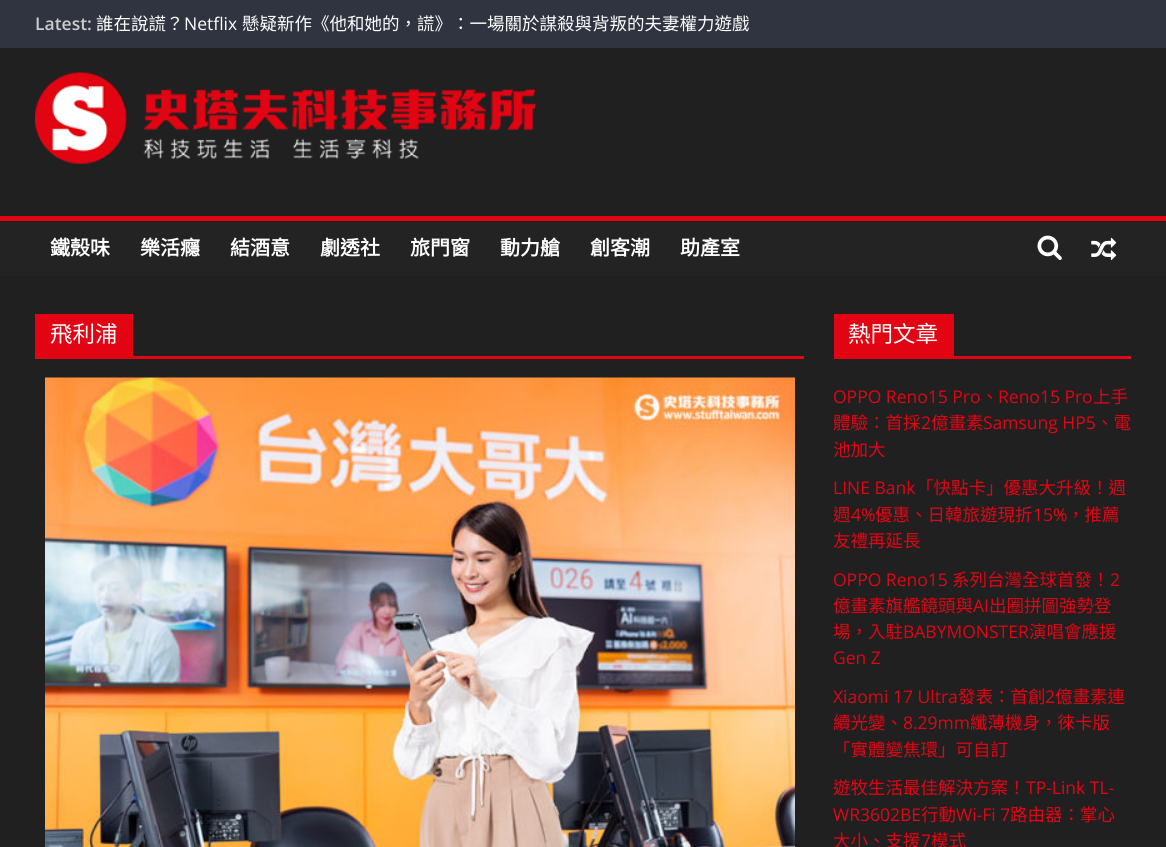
import math
import cairo

surface = cairo.ImageSurface(cairo.FORMAT_RGB24, 1166, 847)
cr = cairo.Context(surface)
options = cairo.FontOptions()
options.set_hint_metrics(cairo.HINT_METRICS_OFF)
options.set_hint_style(cairo.HINT_STYLE_NONE)
cr.set_font_options(options)
cr.set_miter_limit(4)


def rgb(code):
    cr.set_source_rgb(*(v / 255 for v in bytes.fromhex(code[-6:])))


def image(path, x, y, w, h):
    cr.save()
    cr.set_source_surface(cairo.ImageSurface.create_from_png(path), x, y)
    cr.rectangle(x, y, w, h)
    cr.fill()
    cr.restore()


rgb("#202020")
cr.paint()
rgb("#303440")
cr.rectangle(0, 0, 1166, 48)
cr.fill()
image("img/1.png", 35, 72, 500, 92)
rgb("#232323")
cr.rectangle(0, 221, 1166, 55)
cr.fill()
rgb("#e20413")
cr.rectangle(0, 216, 1166, 5)
cr.fill()
image("img/2.png", 1037, 235, 25, 25)
image("img/3.png", 1091, 237, 26, 23)
cr.rectangle(35, 356, 769, 3)
cr.fill()
cr.rectangle(35, 314, 98, 42)
cr.fill()
image("img/4.png", 45, 377, 750, 470)
cr.rectangle(834, 356, 297, 3)
cr.fill()
cr.rectangle(834, 314, 120, 42)
cr.fill()
cr.select_font_face("Open Sans SemiBold")
cr.set_font_size(17.5)
rgb("#cccccc")
cr.move_to(35, 30)
cr.show_text("Latest:")
cr.select_font_face("Noto Sans CJK TC")
rgb("#ffffff")
cr.move_to(96, 30)
cr.show_text("誰在說謊？")
cr.select_font_face("Open Sans")
cr.move_to(184, 30)
cr.show_text("Netflix")
cr.select_font_face("Noto Sans CJK TC")
cr.move_to(242, 30)
cr.show_text("懸疑新作《他和她的，謊》：一場關於謀殺與背叛的夫妻權力遊戲")
cr.select_font_face("Noto Sans CJK TC", cairo.FONT_SLANT_NORMAL, cairo.FONT_WEIGHT_BOLD)
cr.set_font_size(20)
for x, y, s in [
    (50, 255, "鐵殼味"),
    (140, 255, "樂活癮"),
    (230, 255, "結酒意"),
    (320, 255, "劇透社"),
    (410, 255, "旅門窗"),
    (500, 255, "動力艙"),
    (590, 255, "創客潮"),
    (680, 255, "助產室"),
]:
    cr.move_to(x, y)
    cr.show_text(s)
cr.select_font_face("Noto Sans CJK TC")
cr.set_font_size(22.5)
cr.move_to(50, 342)
cr.show_text("飛利浦")
cr.move_to(848, 342)
cr.show_text("熱門文章")
cr.select_font_face("Open Sans")
cr.set_font_size(17.5)
rgb("#e20413")
cr.move_to(833, 403)
cr.show_text("OPPO Reno15 Pro")
cr.select_font_face("Noto Sans CJK TC")
cr.move_to(981, 403)
cr.show_text("、")
cr.select_font_face("Open Sans")
cr.move_to(998, 403)
cr.show_text("Reno15 Pro")
cr.select_font_face("Noto Sans CJK TC")
cr.move_to(1093, 403)
cr.show_text("上手")
cr.move_to(833, 429)
cr.show_text("體驗：首採")
cr.select_font_face("Open Sans")
cr.move_to(921, 429)
cr.show_text("2")
cr.select_font_face("Noto Sans CJK TC")
cr.move_to(931, 429)
cr.show_text("億畫素")
cr.select_font_face("Open Sans")
cr.move_to(983, 429)
cr.show_text("Samsung HP5")
cr.select_font_face("Noto Sans CJK TC")
cr.move_to(1096, 429)
cr.show_text("、電")
cr.move_to(833, 456)
cr.show_text("池加大")
cr.select_font_face("Open Sans")
cr.move_to(833, 494)
cr.show_text("LINE Bank")
cr.select_font_face("Noto Sans CJK TC")
cr.move_to(916, 494)
cr.show_text("「快點卡」優惠大升級！週")
cr.move_to(833, 521)
cr.show_text("週")
cr.select_font_face("Open Sans")
cr.move_to(851, 521)
cr.show_text("4%")
cr.select_font_face("Noto Sans CJK TC")
cr.move_to(875, 521)
cr.show_text("優惠、日韓旅遊現折")
cr.select_font_face("Open Sans")
cr.move_to(1033, 521)
cr.show_text("15%")
cr.select_font_face("Noto Sans CJK TC")
cr.move_to(1067, 521)
cr.show_text("，推薦")
cr.move_to(833, 547)
cr.show_text("友禮再延長")
cr.select_font_face("Open Sans")
cr.move_to(833, 586)
cr.show_text("OPPO Reno15")
cr.select_font_face("Noto Sans CJK TC")
cr.move_to(952, 586)
cr.show_text("系列台灣全球首發！")
cr.select_font_face("Open Sans")
cr.move_to(1110, 586)
cr.show_text("2")
cr.select_font_face("Noto Sans CJK TC")
cr.move_to(833, 612)
cr.show_text("億畫素旗艦鏡頭與")
cr.select_font_face("Open Sans")
cr.move_to(973, 612)
cr.show_text("AI")
cr.select_font_face("Noto Sans CJK TC")
cr.move_to(989, 612)
cr.show_text("出圈拼圖強勢登")
cr.move_to(833, 638)
cr.show_text("場，入駐")
cr.select_font_face("Open Sans")
cr.move_to(903, 638)
cr.show_text("BABYMONSTER")
cr.select_font_face("Noto Sans CJK TC")
cr.move_to(1029, 638)
cr.show_text("演唱會應援")
cr.select_font_face("Open Sans")
cr.move_to(833, 664)
cr.show_text("Gen Z")
cr.move_to(833, 703)
cr.show_text("Xiaomi 17 Ultra")
cr.select_font_face("Noto Sans CJK TC")
cr.move_to(958, 703)
cr.show_text("發表：首創")
cr.select_font_face("Open Sans")
cr.move_to(1045, 703)
cr.show_text("2")
cr.select_font_face("Noto Sans CJK TC")
cr.move_to(1055, 703)
cr.show_text("億畫素連")
cr.move_to(833, 729)
cr.show_text("續光變、")
cr.select_font_face("Open Sans")
cr.move_to(903, 729)
cr.show_text("8.29mm")
cr.select_font_face("Noto Sans CJK TC")
for x, y, s in [
    (970, 729, "纖薄機身，徠卡版"),
    (833, 756, "「實體變焦環」可自訂"),
    (833, 794, "遊牧生活最佳解決方案！"),
]:
    cr.move_to(x, y)
    cr.show_text(s)
cr.select_font_face("Open Sans")
cr.move_to(1026, 794)
cr.show_text("TP-Link TL-")
cr.move_to(833, 821)
cr.show_text("WR3602BE")
cr.select_font_face("Noto Sans CJK TC")
cr.move_to(921, 821)
cr.show_text("行動")
cr.select_font_face("Open Sans")
cr.move_to(956, 821)
cr.show_text("Wi-Fi 7")
cr.select_font_face("Noto Sans CJK TC")
cr.move_to(1010, 821)
cr.show_text("路由器：掌心")
cr.move_to(833, 847)
cr.show_text("大小、支援")
cr.select_font_face("Open Sans")
cr.move_to(921, 847)
cr.show_text("7")
cr.select_font_face("Noto Sans CJK TC")
cr.move_to(931, 847)
cr.show_text("模式")
surface.write_to_png("page.png")
